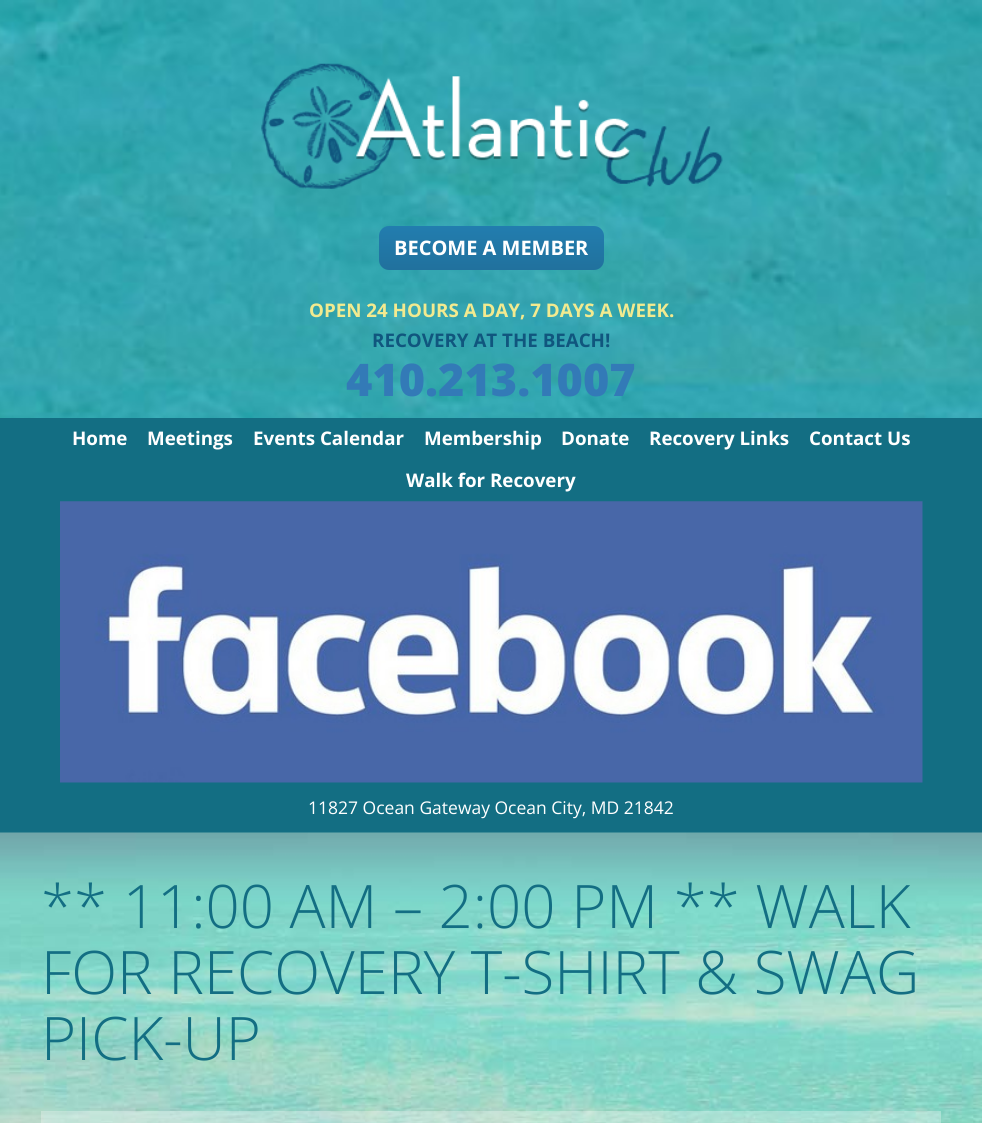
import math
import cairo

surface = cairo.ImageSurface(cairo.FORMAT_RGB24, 982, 1123)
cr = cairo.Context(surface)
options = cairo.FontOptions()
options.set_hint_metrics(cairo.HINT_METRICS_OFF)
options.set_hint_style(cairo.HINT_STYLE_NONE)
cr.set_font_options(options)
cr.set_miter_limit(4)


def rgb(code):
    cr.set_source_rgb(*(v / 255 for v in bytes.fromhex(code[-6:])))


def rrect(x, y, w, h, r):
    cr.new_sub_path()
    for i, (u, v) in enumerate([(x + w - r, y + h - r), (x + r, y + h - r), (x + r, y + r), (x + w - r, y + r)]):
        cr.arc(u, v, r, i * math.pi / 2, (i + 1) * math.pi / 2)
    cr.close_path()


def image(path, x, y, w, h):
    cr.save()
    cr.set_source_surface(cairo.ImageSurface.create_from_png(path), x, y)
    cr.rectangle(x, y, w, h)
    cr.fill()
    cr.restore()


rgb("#ffffff")
cr.paint()
image("img/1.png", 0, 0, 982, 418)
image("img/2.png", 261, 63, 462, 126)
gradient = cairo.LinearGradient(491, 226, 491, 270)
gradient.add_color_stop_rgba(0, 0.133, 0.49, 0.686, 1)
gradient.add_color_stop_rgba(1, 0.129, 0.443, 0.616, 1)
cr.set_source(gradient)
rrect(379, 226, 225, 44, 10)
cr.fill()
rgb("#136e83")
cr.rectangle(0, 418, 982, 415)
cr.fill()
image("img/3.png", 60, 501, 863, 282)
image("img/4.png", 0, 832, 982, 291)
cr.set_source_rgba(1, 1, 1, 0.3)
cr.rectangle(41, 1111, 900, 12)
cr.fill()
cr.select_font_face("Open Sans", cairo.FONT_SLANT_NORMAL, cairo.FONT_WEIGHT_BOLD)
cr.set_font_size(20)
rgb("#ffffff")
cr.move_to(394, 255)
cr.show_text("BECOME A MEMBER")
cr.set_font_size(18.75)
rgb("#f2ea8f")
cr.move_to(309, 317)
cr.show_text("OPEN 24 HOURS A DAY, 7 DAYS A WEEK.")
rgb("#10567e")
cr.move_to(372, 347)
cr.show_text("RECOVERY AT THE BEACH!")
cr.select_font_face("Open Sans ExtraBold")
cr.set_font_size(45)
rgb("#337ab7")
cr.move_to(346, 396)
cr.show_text("410.213.1007")
cr.select_font_face("Open Sans", cairo.FONT_SLANT_NORMAL, cairo.FONT_WEIGHT_BOLD)
cr.set_font_size(18.75)
rgb("#ffffff")
for x, y, s in [
    (72, 445, "Home"),
    (147, 445, "Meetings"),
    (253, 445, "Events Calendar"),
    (424, 445, "Membership"),
    (561, 445, "Donate"),
    (649, 445, "Recovery Links"),
    (809, 445, "Contact Us"),
    (406, 487, "Walk for Recovery"),
]:
    cr.move_to(x, y)
    cr.show_text(s)
cr.select_font_face("Open Sans")
cr.set_font_size(17.5)
cr.move_to(308, 814)
cr.show_text("11827 Ocean Gateway Ocean City, MD 21842")
cr.select_font_face("Open Sans Light")
cr.set_font_size(60)
rgb("#136e83")
for x, y, s in [
    (41, 928, "** 11:00 AM – 2:00 PM ** WALK"),
    (41, 994, "FOR RECOVERY T-SHIRT & SWAG"),
    (41, 1060, "PICK-UP"),
]:
    cr.move_to(x, y)
    cr.show_text(s)
surface.write_to_png("page.png")
